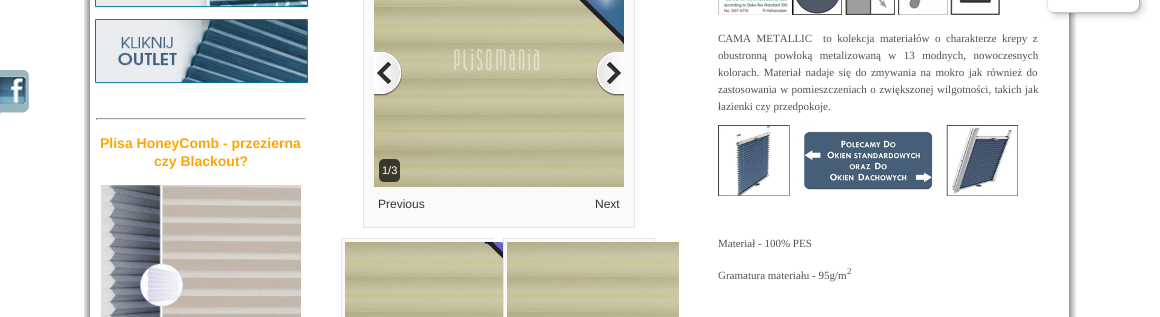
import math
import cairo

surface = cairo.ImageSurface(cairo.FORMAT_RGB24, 1160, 317)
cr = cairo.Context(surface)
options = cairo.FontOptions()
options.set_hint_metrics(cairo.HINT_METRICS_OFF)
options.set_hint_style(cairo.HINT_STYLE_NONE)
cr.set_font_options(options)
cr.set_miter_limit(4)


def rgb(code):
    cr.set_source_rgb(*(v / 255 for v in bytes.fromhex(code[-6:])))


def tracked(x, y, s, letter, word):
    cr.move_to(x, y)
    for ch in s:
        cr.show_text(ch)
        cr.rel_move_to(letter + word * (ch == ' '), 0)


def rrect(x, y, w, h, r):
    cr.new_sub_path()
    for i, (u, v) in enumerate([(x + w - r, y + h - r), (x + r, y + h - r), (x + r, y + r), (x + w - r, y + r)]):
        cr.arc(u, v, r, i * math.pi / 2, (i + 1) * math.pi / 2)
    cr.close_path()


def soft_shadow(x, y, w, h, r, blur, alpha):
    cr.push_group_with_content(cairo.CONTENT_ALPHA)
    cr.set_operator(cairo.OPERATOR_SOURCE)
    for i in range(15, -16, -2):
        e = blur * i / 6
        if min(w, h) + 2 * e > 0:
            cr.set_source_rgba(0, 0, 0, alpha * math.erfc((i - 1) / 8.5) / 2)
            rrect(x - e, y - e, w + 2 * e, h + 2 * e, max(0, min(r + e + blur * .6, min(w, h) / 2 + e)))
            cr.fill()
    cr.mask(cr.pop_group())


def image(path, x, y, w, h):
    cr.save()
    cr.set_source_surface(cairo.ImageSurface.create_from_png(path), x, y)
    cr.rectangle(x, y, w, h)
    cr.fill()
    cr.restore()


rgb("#ffffff")
cr.paint()
image("img/1.png", 84, 0, 992, 317)
rgb("#000000")
soft_shadow(1050, -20, 93, 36, 8, 4, 0.15)
soft_shadow(1048, -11, 93, 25, 8, 1, 0.15)
rgb("#ffffff")
rrect(1047, -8, 93, 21, 8)
cr.fill()
rgb("#e5e5e5")
cr.new_path()
cr.move_to(1056, -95)
cr.line_to(1133, -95)
cr.curve_to(1135, -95, 1137, -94, 1139, -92)
cr.curve_to(1137, -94, 1135, -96, 1132, -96)
cr.line_to(1055, -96)
cr.curve_to(1051, -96, 1047, -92, 1047, -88)
cr.line_to(1047, 5)
cr.curve_to(1047, 8, 1049, 10, 1051, 12)
cr.curve_to(1049, 10, 1048, 8, 1048, 6)
cr.line_to(1048, -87)
cr.curve_to(1048, -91, 1052, -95, 1056, -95)
cr.close_path()
cr.fill()
rgb("#cccccc")
cr.new_path()
cr.move_to(1048, 9)
cr.curve_to(1050, 11, 1052, 13, 1055, 13)
cr.line_to(1132, 13)
cr.curve_to(1136, 13, 1140, 9, 1140, 5)
cr.line_to(1140, -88)
cr.curve_to(1140, -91, 1138, -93, 1136, -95)
cr.curve_to(1138, -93, 1139, -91, 1139, -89)
cr.line_to(1139, 4)
cr.curve_to(1139, 8, 1135, 12, 1131, 12)
cr.line_to(1054, 12)
cr.curve_to(1052, 12, 1050, 11, 1048, 9)
cr.close_path()
cr.fill()
cr.set_source_rgba(0.196, 0.196, 0.196, 0.2)
cr.new_path()
cr.move_to(1049, 10)
cr.curve_to(1050, 12, 1053, 13, 1055, 13)
cr.line_to(1132, 13)
cr.curve_to(1136, 13, 1140, 9, 1140, 5)
cr.line_to(1140, -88)
cr.curve_to(1140, -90, 1139, -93, 1137, -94)
cr.curve_to(1138, -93, 1139, -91, 1139, -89)
cr.line_to(1139, 4)
cr.curve_to(1139, 9, 1136, 12, 1131, 12)
cr.line_to(1054, 12)
cr.curve_to(1052, 12, 1050, 11, 1049, 10)
cr.close_path()
cr.fill()
cr.set_source_rgba(1, 1, 1, 0.3)
cr.new_path()
cr.move_to(1049, 10)
cr.curve_to(1050, 12, 1053, 13, 1055, 13)
cr.line_to(1132, 13)
cr.curve_to(1136, 13, 1140, 9, 1140, 5)
cr.line_to(1140, 4)
cr.curve_to(1140, 9, 1136, 12, 1132, 12)
cr.line_to(1054, 12)
cr.curve_to(1052, 12, 1050, 11, 1049, 10)
cr.close_path()
cr.fill()
image("img/2.png", 0, 70, 29, 44)
rgb("#fafafa")
cr.rectangle(363.5, -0.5, 271, 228)
cr.fill_preserve()
rgb("#e5e5e5")
cr.set_line_width(1)
cr.stroke()
image("img/3.png", 374, 0, 250, 187)
image("img/4.png", 374, 52, 28, 44)
image("img/5.png", 596, 52, 28, 44)
cr.set_source_rgba(0, 0, 0, 0.7)
rrect(379, 159, 21, 23, 5)
cr.fill()
rgb("#fafafa")
cr.rectangle(341.5, 238.5, 151, 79)
cr.fill_preserve()
rgb("#e5e5e5")
cr.stroke()
image("img/6.png", 345, 242, 158, 75)
rgb("#fafafa")
cr.rectangle(503.5, 238.5, 151, 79)
cr.fill_preserve()
rgb("#e5e5e5")
cr.stroke()
image("img/7.png", 507, 242, 172, 75)
image("img/8.png", 718, 0, 74, 15)
image("img/9.png", 792, 0, 50, 15)
image("img/10.png", 845, 0, 50, 15)
image("img/11.png", 898, 0, 50, 15)
image("img/12.png", 950, 0, 50, 15)
image("img/13.png", 718, 125, 300, 71)
image("img/14.png", 95, 0, 213, 8)
image("img/15.png", 95, 19, 213, 65)
for x, y, w, h, color in [
    (96, 118, 210, 1, "#9f9f9f"),
    (305, 118, 1, 2, "#eeeeee"),
    (96, 119, 210, 1, "#eeeeee"),
    (96, 118, 1, 2, "#9f9f9f"),
]:
    rgb(color)
    cr.rectangle(x, y, w, h)
    cr.fill()
image("img/16.png", 101, 185, 200, 132)
cr.select_font_face("Liberation Sans")
cr.set_font_size(11)
rgb("#ffffff")
cr.move_to(382, 174)
cr.show_text("1/3")
cr.set_font_size(12)
rgb("#333333")
cr.move_to(378, 208)
cr.show_text("Previous")
cr.move_to(595, 208)
cr.show_text("Next")
cr.select_font_face("Liberation Serif")
cr.set_font_size(11)
rgb("#505051")
tracked(718, 42, "CAMA METALLIC  to kolekcja materiałów o charakterze krepy z", 0, 2.75)
tracked(718, 59, "obustronną powłoką metalizowaną w 13 modnych, nowoczesnych", 0, 4.75)
tracked(718, 76, "kolorach. Materiał nadaje się do zmywania na mokro jak również do", 0, 1.75)
tracked(718, 93, "zastosowania w pomieszczeniach o zwiększonej wilgotności, takich jak", 0, 0.75)
for x, y, s in [
    (718, 110, "łazienki czy przedpokoje."),
    (718, 247, "Materiał - 100% PES"),
    (718, 279, "Gramatura materiału - 95g/m"),
]:
    cr.move_to(x, y)
    cr.show_text(s)
cr.set_font_size(9)
cr.move_to(847, 274)
cr.show_text("2")
cr.select_font_face("Liberation Sans", cairo.FONT_SLANT_NORMAL, cairo.FONT_WEIGHT_BOLD)
cr.set_font_size(14)
rgb("#ffa500")
cr.move_to(100, 148)
cr.show_text("Plisa HoneyComb - przezierna")
cr.move_to(154, 166)
cr.show_text("czy Blackout?")
surface.write_to_png("page.png")
